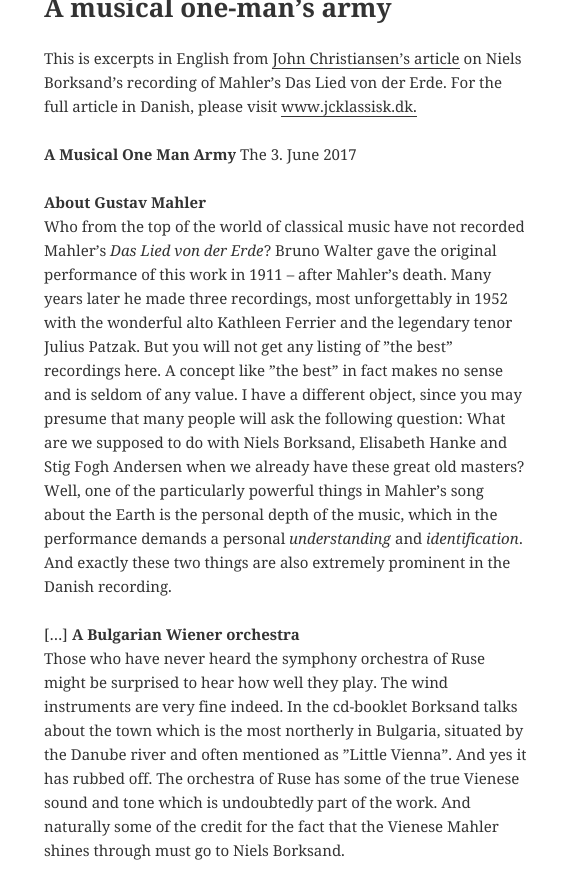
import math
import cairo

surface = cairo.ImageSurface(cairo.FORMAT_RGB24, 572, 893)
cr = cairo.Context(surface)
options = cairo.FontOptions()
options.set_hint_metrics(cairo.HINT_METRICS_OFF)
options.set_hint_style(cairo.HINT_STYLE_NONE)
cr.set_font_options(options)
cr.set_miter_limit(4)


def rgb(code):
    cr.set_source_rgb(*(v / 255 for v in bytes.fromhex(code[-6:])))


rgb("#ffffff")
cr.paint()
rgb("#333333")
cr.rectangle(272, 68, 188, 1)
cr.fill()
cr.rectangle(281, 116, 136, 1)
cr.fill()
cr.select_font_face("Noto Serif", cairo.FONT_SLANT_NORMAL, cairo.FONT_WEIGHT_BOLD)
cr.set_font_size(26)
cr.move_to(44, 17)
cr.show_text("A musical one-man’s army")
cr.select_font_face("Noto Serif")
cr.set_font_size(15)
for x, y, s in [
    (44, 64, "This is excerpts in English from John Christiansen’s article on Niels"),
    (44, 88, "Borksand’s recording of Mahler’s Das Lied von der Erde. For the"),
    (44, 112, "full article in Danish, please visit www.jcklassisk.dk."),
]:
    cr.move_to(x, y)
    cr.show_text(s)
cr.select_font_face("Noto Serif", cairo.FONT_SLANT_NORMAL, cairo.FONT_WEIGHT_BOLD)
cr.move_to(44, 160)
cr.show_text("A Musical One Man Army")
cr.select_font_face("Noto Serif")
cr.move_to(240, 160)
cr.show_text("The 3. June 2017")
cr.select_font_face("Noto Serif", cairo.FONT_SLANT_NORMAL, cairo.FONT_WEIGHT_BOLD)
cr.move_to(44, 208)
cr.show_text("About Gustav Mahler")
cr.select_font_face("Noto Serif")
cr.move_to(44, 232)
cr.show_text("Who from the top of the world of classical music have not recorded")
cr.move_to(44, 256)
cr.show_text("Mahler’s")
cr.select_font_face("Noto Serif", cairo.FONT_SLANT_ITALIC)
cr.move_to(110, 256)
cr.show_text("Das Lied von der Erde")
cr.select_font_face("Noto Serif")
for x, y, s in [
    (264, 256, "? Bruno Walter gave the original"),
    (44, 280, "performance of this work in 1911 – after Mahler’s death. Many"),
    (44, 304, "years later he made three recordings, most unforgettably in 1952"),
    (44, 328, "with the wonderful alto Kathleen Ferrier and the legendary tenor"),
    (44, 352, "Julius Patzak. But you will not get any listing of ”the best”"),
    (44, 376, "recordings here. A concept like ”the best” in fact makes no sense"),
    (44, 400, "and is seldom of any value. I have a different object, since you may"),
    (44, 424, "presume that many people will ask the following question: What"),
    (44, 448, "are we supposed to do with Niels Borksand, Elisabeth Hanke and"),
    (44, 472, "Stig Fogh Andersen when we already have these great old masters?"),
    (44, 496, "Well, one of the particularly powerful things in Mahler’s song"),
    (44, 520, "about the Earth is the personal depth of the music, which in the"),
    (44, 544, "performance demands a personal"),
]:
    cr.move_to(x, y)
    cr.show_text(s)
cr.select_font_face("Noto Serif", cairo.FONT_SLANT_ITALIC)
cr.move_to(289, 544)
cr.show_text("understanding")
cr.select_font_face("Noto Serif")
cr.move_to(395, 544)
cr.show_text("and")
cr.select_font_face("Noto Serif", cairo.FONT_SLANT_ITALIC)
cr.move_to(426, 544)
cr.show_text("identification")
cr.select_font_face("Noto Serif")
for x, y, s in [
    (519, 544, "."),
    (44, 568, "And exactly these two things are also extremely prominent in the"),
    (44, 592, "Danish recording."),
    (44, 640, "[…]"),
]:
    cr.move_to(x, y)
    cr.show_text(s)
cr.select_font_face("Noto Serif", cairo.FONT_SLANT_NORMAL, cairo.FONT_WEIGHT_BOLD)
cr.move_to(72, 640)
cr.show_text("A Bulgarian Wiener orchestra")
cr.select_font_face("Noto Serif")
for x, y, s in [
    (44, 664, "Those who have never heard the symphony orchestra of Ruse"),
    (44, 688, "might be surprised to hear how well they play. The wind"),
    (44, 712, "instruments are very fine indeed. In the cd-booklet Borksand talks"),
    (44, 736, "about the town which is the most northerly in Bulgaria, situated by"),
    (44, 760, "the Danube river and often mentioned as ”Little Vienna”. And yes it"),
    (44, 784, "has rubbed off. The orchestra of Ruse has some of the true Vienese"),
    (44, 808, "sound and tone which is undoubtedly part of the work. And"),
    (44, 832, "naturally some of the credit for the fact that the Vienese Mahler"),
    (44, 856, "shines through must go to Niels Borksand."),
]:
    cr.move_to(x, y)
    cr.show_text(s)
surface.write_to_png("page.png")
